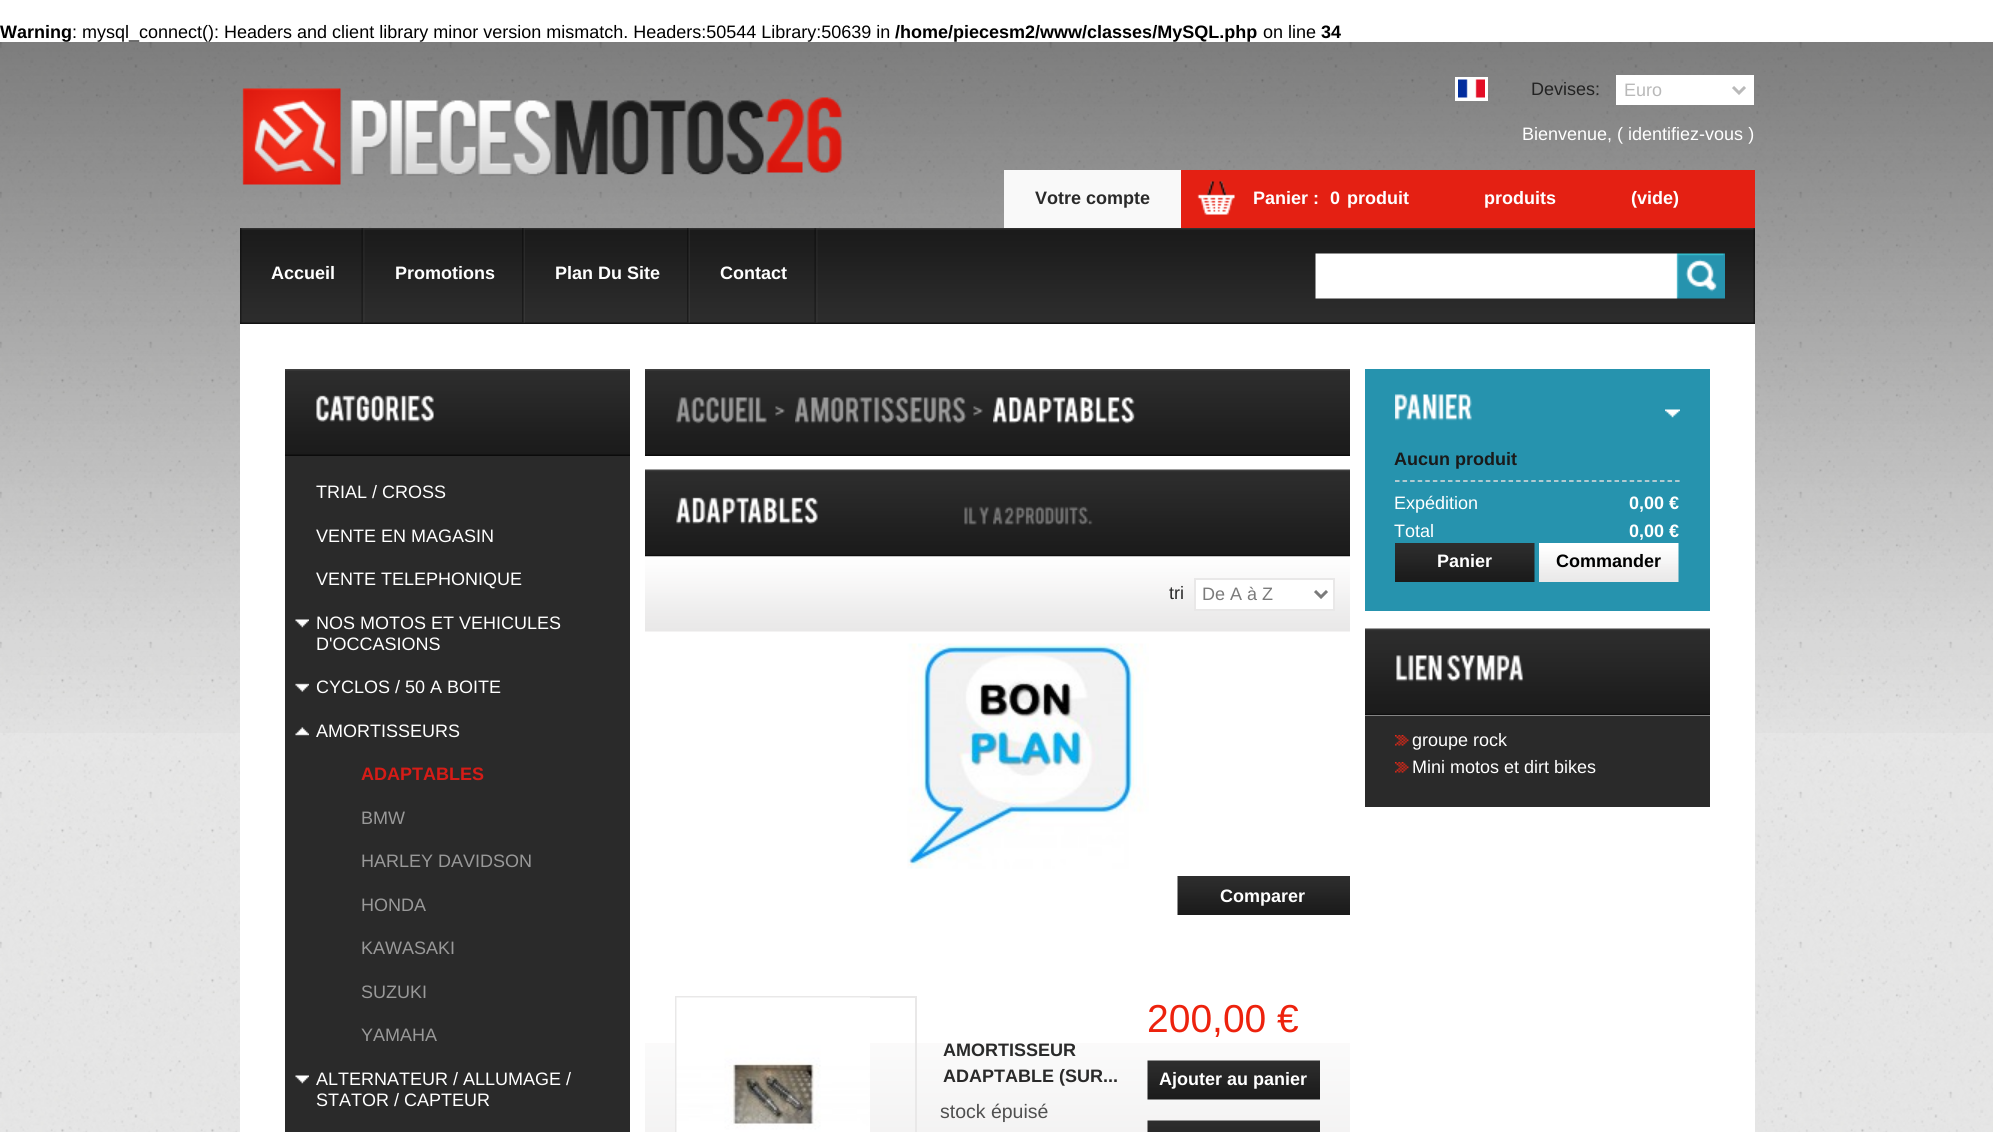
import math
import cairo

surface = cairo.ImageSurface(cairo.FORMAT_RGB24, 1993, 1132)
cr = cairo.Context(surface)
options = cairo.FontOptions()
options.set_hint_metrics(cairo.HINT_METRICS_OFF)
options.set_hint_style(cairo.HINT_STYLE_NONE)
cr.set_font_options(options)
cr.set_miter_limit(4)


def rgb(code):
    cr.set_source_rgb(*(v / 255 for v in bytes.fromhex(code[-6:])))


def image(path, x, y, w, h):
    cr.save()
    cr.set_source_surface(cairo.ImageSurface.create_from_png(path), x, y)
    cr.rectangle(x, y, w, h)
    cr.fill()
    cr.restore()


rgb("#ffffff")
cr.paint()
image("img/1.png", 0, 42, 1993, 1090)
image("img/2.png", 0, 42, 1993, 691)
image("img/3.png", 240, 228, 1515, 96)
rgb("#ffffff")
cr.rectangle(1455, 77, 33, 24)
cr.fill()
image("img/4.png", 1458, 79, 27, 19)
cr.rectangle(1616, 75, 138, 30)
cr.fill()
cr.new_path()
cr.move_to(1733, 87)
cr.line_to(1739, 93)
cr.line_to(1745, 87)
rgb("#b9b9b9")
cr.set_line_width(3)
cr.stroke()
rgb("#e42013")
cr.rectangle(1181, 170, 574, 58)
cr.fill()
rgb("#f9f9f9")
cr.rectangle(1004, 170, 177, 58)
cr.fill()
image("img/5.png", 1197, 181, 38, 34)
image("img/6.png", 361, 228, 4, 95)
image("img/7.png", 522, 228, 3, 95)
image("img/8.png", 687, 228, 3, 95)
image("img/6.png", 814, 228, 4, 95)
image("img/9.png", 1315, 253, 410, 46)
image("img/10.png", 242, 88, 600, 97)
rgb("#ffffff")
cr.rectangle(240, 324, 1515, 808)
cr.fill()
image("img/11.png", 285, 369, 345, 87)
image("img/12.png", 316, 395, 118, 27)
rgb("#2a2a2a")
cr.rectangle(285, 456, 345, 676)
cr.fill()
image("img/13.png", 295, 619, 14, 9)
image("img/14.png", 295, 683, 14, 9)
image("img/15.png", 295, 727, 14, 9)
image("img/13.png", 295, 1075, 14, 9)
image("img/16.png", 645, 369, 705, 87)
image("img/17.png", 676, 397, 91, 27)
image("img/18.png", 775, 406, 10, 10)
image("img/19.png", 795, 397, 172, 27)
image("img/18.png", 973, 406, 10, 10)
image("img/20.png", 993, 397, 142, 27)
image("img/21.png", 645, 469, 705, 88)
image("img/22.png", 676, 497, 142, 27)
image("img/23.png", 964, 506, 13, 19)
image("img/24.png", 979, 506, 10, 19)
image("img/25.png", 993, 506, 100, 19)
image("img/26.png", 645, 556, 705, 76)
rgb("#ffffff")
cr.rectangle(1195, 579, 139, 31)
cr.fill_preserve()
rgb("#e9e8e8")
cr.set_line_width(2)
cr.stroke()
cr.new_path()
cr.move_to(1315, 591)
cr.line_to(1321, 597)
cr.line_to(1327, 591)
rgb("#7b7b7b")
cr.set_line_width(3)
cr.stroke()
image("img/27.png", 907, 643, 242, 226)
image("img/28.png", 1177, 876, 173, 39)
image("img/29.png", 645, 1043, 705, 89)
cr.rectangle(676, 997, 240, 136)
rgb("#e9e8e8")
cr.set_line_width(2)
cr.stroke()
image("img/30.png", 676, 997, 194, 135)
image("img/31.png", 1147, 1060, 173, 40)
image("img/32.png", 1147, 1120, 173, 12)
rgb("#2693ae")
cr.rectangle(1365, 369, 345, 242)
cr.fill()
image("img/33.png", 1395, 394, 77, 27)
image("img/34.png", 1665, 409, 15, 9)
cr.new_path()
cr.move_to(1395, 481)
cr.line_to(1680, 481)
rgb("#dfdede")
cr.set_line_width(1.5)
cr.set_dash([4.5, 3.07])
cr.stroke()
image("img/35.png", 1395, 543, 140, 39)
image("img/36.png", 1539, 543, 140, 39)
image("img/37.png", 1365, 628, 345, 88)
image("img/38.png", 1396, 655, 46, 27)
image("img/39.png", 1447, 655, 77, 27)
rgb("#2a2a2a")
cr.rectangle(1365, 716, 345, 91)
cr.fill()
image("img/40.png", 1395, 735, 14, 11)
image("img/40.png", 1395, 762, 14, 11)
cr.select_font_face("Liberation Sans", cairo.FONT_SLANT_NORMAL, cairo.FONT_WEIGHT_BOLD)
cr.set_font_size(18)
rgb("#000000")
cr.move_to(0, 38)
cr.show_text("Warning")
cr.select_font_face("Liberation Sans")
cr.move_to(72, 38)
cr.show_text(": mysql_connect(): Headers and client library minor version mismatch. Headers:50544 Library:50639 in")
cr.select_font_face("Liberation Sans", cairo.FONT_SLANT_NORMAL, cairo.FONT_WEIGHT_BOLD)
cr.move_to(895, 38)
cr.show_text("/home/piecesm2/www/classes/MySQL.php")
cr.select_font_face("Liberation Sans")
cr.move_to(1263, 38)
cr.show_text("on line")
cr.select_font_face("Liberation Sans", cairo.FONT_SLANT_NORMAL, cairo.FONT_WEIGHT_BOLD)
cr.move_to(1321, 38)
cr.show_text("34")
cr.select_font_face("Liberation Sans")
rgb("#232323")
cr.move_to(1531, 95)
cr.show_text("Devises:")
rgb("#b9b9b9")
cr.move_to(1624, 96)
cr.show_text("Euro")
rgb("#ffffff")
cr.move_to(1522, 140)
cr.show_text("Bienvenue, ( identifiez-vous )")
cr.select_font_face("Liberation Sans", cairo.FONT_SLANT_NORMAL, cairo.FONT_WEIGHT_BOLD)
rgb("#2a2a2a")
cr.move_to(1035, 204)
cr.show_text("Votre compte")
rgb("#ffffff")
for x, y, s in [
    (1253, 204, "Panier :"),
    (1330, 204, "0"),
    (1347, 204, "produit"),
    (1484, 204, "produits"),
    (1631, 204, "(vide)"),
    (271, 279, "Accueil"),
    (395, 279, "Promotions"),
    (555, 279, "Plan Du Site"),
    (720, 279, "Contact"),
]:
    cr.move_to(x, y)
    cr.show_text(s)
cr.select_font_face("Liberation Sans")
for x, y, s in [
    (316, 498, "TRIAL / CROSS"),
    (316, 542, "VENTE EN MAGASIN"),
    (316, 585, "VENTE TELEPHONIQUE"),
    (316, 629, "NOS MOTOS ET VEHICULES"),
    (316, 650, "D'OCCASIONS"),
    (316, 693, "CYCLOS / 50 A BOITE"),
    (316, 737, "AMORTISSEURS"),
]:
    cr.move_to(x, y)
    cr.show_text(s)
cr.select_font_face("Liberation Sans", cairo.FONT_SLANT_NORMAL, cairo.FONT_WEIGHT_BOLD)
rgb("#d61c17")
cr.move_to(361, 780)
cr.show_text("ADAPTABLES")
cr.select_font_face("Liberation Sans")
rgb("#999999")
for x, y, s in [
    (361, 824, "BMW"),
    (361, 867, "HARLEY DAVIDSON"),
    (361, 911, "HONDA"),
    (361, 954, "KAWASAKI"),
    (361, 998, "SUZUKI"),
    (361, 1041, "YAMAHA"),
]:
    cr.move_to(x, y)
    cr.show_text(s)
rgb("#ffffff")
cr.move_to(316, 1085)
cr.show_text("ALTERNATEUR / ALLUMAGE /")
cr.move_to(316, 1106)
cr.show_text("STATOR / CAPTEUR")
rgb("#2a2a2a")
cr.move_to(1169, 599)
cr.show_text("tri")
rgb("#7b7b7b")
cr.move_to(1202, 600)
cr.show_text("De A à Z")
cr.select_font_face("Liberation Sans", cairo.FONT_SLANT_NORMAL, cairo.FONT_WEIGHT_BOLD)
rgb("#ffffff")
cr.move_to(1220, 902)
cr.show_text("Comparer")
rgb("#2a2a2a")
cr.move_to(943, 1056)
cr.show_text("AMORTISSEUR")
cr.move_to(943, 1082)
cr.show_text("ADAPTABLE (SUR...")
cr.select_font_face("Liberation Sans")
cr.set_font_size(19.5)
rgb("#505050")
cr.move_to(940, 1118)
cr.show_text("stock épuisé")
cr.set_font_size(39)
rgb("#ed220d")
cr.move_to(1147, 1032)
cr.show_text("200,00 €")
cr.select_font_face("Liberation Sans", cairo.FONT_SLANT_NORMAL, cairo.FONT_WEIGHT_BOLD)
cr.set_font_size(18)
rgb("#ffffff")
cr.move_to(1159, 1085)
cr.show_text("Ajouter au panier")
rgb("#1a1a1a")
cr.move_to(1394, 465)
cr.show_text("Aucun produit")
cr.select_font_face("Liberation Sans")
rgb("#ffffff")
cr.move_to(1394, 509)
cr.show_text("Expédition")
cr.select_font_face("Liberation Sans", cairo.FONT_SLANT_NORMAL, cairo.FONT_WEIGHT_BOLD)
cr.move_to(1629, 509)
cr.show_text("0,00 €")
cr.select_font_face("Liberation Sans")
cr.move_to(1394, 537)
cr.show_text("Total")
cr.select_font_face("Liberation Sans", cairo.FONT_SLANT_NORMAL, cairo.FONT_WEIGHT_BOLD)
cr.move_to(1629, 537)
cr.show_text("0,00 €")
cr.move_to(1437, 567)
cr.show_text("Panier")
rgb("#000000")
cr.move_to(1556, 567)
cr.show_text("Commander")
cr.select_font_face("Liberation Sans")
rgb("#ffffff")
cr.move_to(1412, 746)
cr.show_text("groupe rock")
cr.move_to(1412, 773)
cr.show_text("Mini motos et dirt bikes")
surface.write_to_png("page.png")
